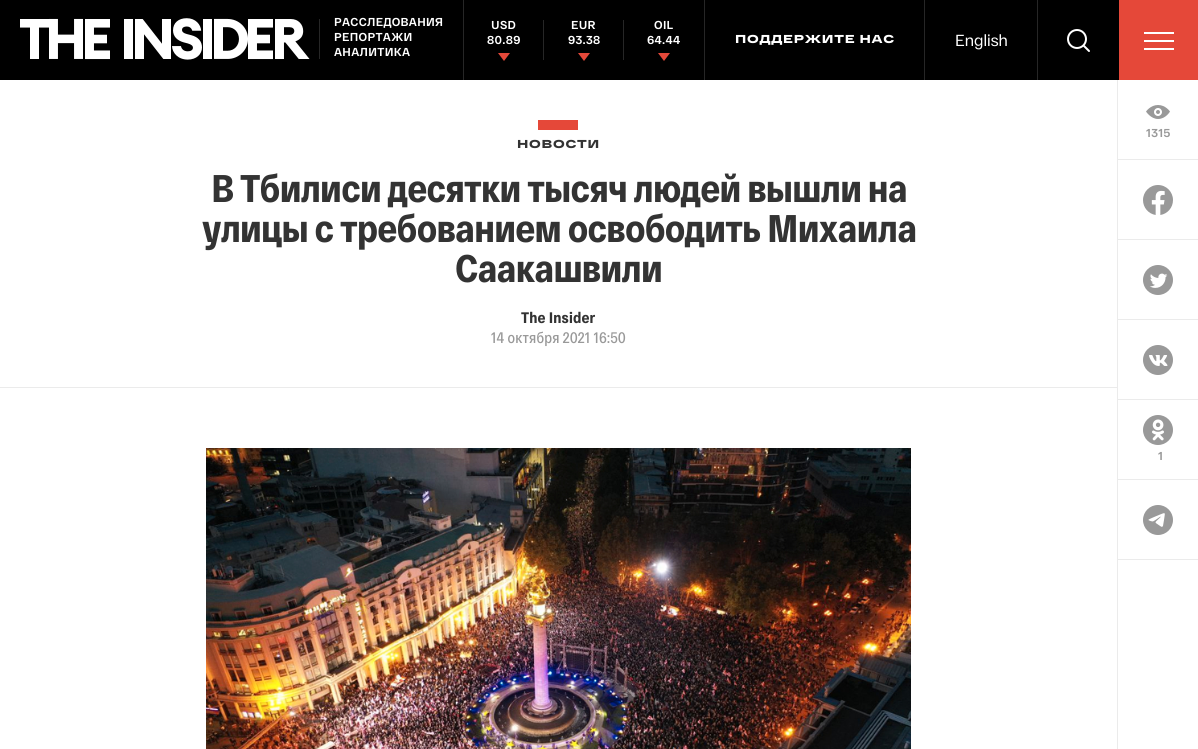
import math
import cairo

surface = cairo.ImageSurface(cairo.FORMAT_RGB24, 1198, 749)
cr = cairo.Context(surface)
options = cairo.FontOptions()
options.set_hint_metrics(cairo.HINT_METRICS_OFF)
options.set_hint_style(cairo.HINT_STYLE_NONE)
cr.set_font_options(options)
cr.set_miter_limit(4)


def rgb(code):
    cr.set_source_rgb(*(v / 255 for v in bytes.fromhex(code[-6:])))


def tracked(x, y, s, letter, word):
    cr.move_to(x, y)
    for ch in s:
        cr.show_text(ch)
        cr.rel_move_to(letter + word * (ch == ' '), 0)


def image(path, x, y, w, h):
    cr.save()
    cr.set_source_surface(cairo.ImageSurface.create_from_png(path), x, y)
    cr.rectangle(x, y, w, h)
    cr.fill()
    cr.restore()


rgb("#ffffff")
cr.paint()
rgb("#000000")
cr.rectangle(0, 0, 1119, 80)
cr.fill()
image("img/1.png", 20, 18, 290, 42)
for x, y, w, h, color in [
    (319, 19, 1, 40, "#262626"),
    (463, 0, 1, 80, "#262626"),
    (543, 20, 1, 40, "#262626"),
]:
    rgb(color)
    cr.rectangle(x, y, w, h)
    cr.fill()
rgb("#e54839")
cr.new_path()
cr.move_to(498, 53)
cr.line_to(510, 53)
cr.line_to(504, 61)
cr.close_path()
cr.fill()
rgb("#262626")
cr.rectangle(623, 20, 1, 40)
cr.fill()
rgb("#e54839")
cr.new_path()
cr.move_to(578, 53)
cr.line_to(590, 53)
cr.line_to(584, 61)
cr.close_path()
cr.fill()
cr.new_path()
cr.move_to(658, 53)
cr.line_to(670, 53)
cr.line_to(664, 61)
cr.close_path()
cr.fill()
for x, y, w, h, color in [
    (704, 0, 1, 80, "#262626"),
    (924, 0, 1, 80, "#262626"),
    (1037, 0, 1, 80, "#262626"),
]:
    rgb(color)
    cr.rectangle(x, y, w, h)
    cr.fill()
cr.arc(1077, 39, 9, 0, 2 * math.pi)
rgb("#ffffff")
cr.stroke()
cr.new_path()
cr.move_to(1084, 46)
cr.line_to(1089, 51)
cr.set_line_cap(cairo.LINE_CAP_ROUND)
cr.stroke()
for x, y, w, h, color in [
    (1119, 0, 79, 80, "#e54839"),
    (1144, 32, 30, 2, "#ffffff"),
    (1144, 40, 30, 2, "#ffffff"),
    (1144, 48, 30, 2, "#ffffff"),
    (1117, 80, 1, 669, "#ebebeb"),
    (0, 387, 1118, 1, "#ebebeb"),
    (538, 120, 40, 10, "#e54839"),
    (1118, 159, 80, 1, "#ebebeb"),
]:
    rgb(color)
    cr.rectangle(x, y, w, h)
    cr.fill()
image("img/2.png", 1146, 105, 24, 14)
cr.rectangle(1118, 239, 80, 1)
cr.fill()
image("img/3.png", 1143, 185, 30, 30)
cr.rectangle(1118, 319, 80, 1)
cr.fill()
image("img/4.png", 1143, 265, 30, 30)
cr.rectangle(1118, 399, 80, 1)
cr.fill()
image("img/5.png", 1143, 345, 30, 30)
cr.rectangle(1118, 479, 80, 1)
cr.fill()
image("img/6.png", 1143, 415, 30, 30)
cr.rectangle(1118, 559, 80, 1)
cr.fill()
image("img/7.png", 1143, 505, 30, 30)
image("img/8.png", 206, 448, 705, 301)
cr.select_font_face("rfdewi")
cr.set_font_size(11.5)
rgb("#ffffff")
for x, y, s in [
    (334, 26, "РАССЛЕДОВАНИЯ"),
    (334, 41, "РЕПОРТАЖИ"),
    (334, 56, "АНАЛИТИКА"),
    (491, 29, "USD"),
    (487, 44, "80.89"),
    (571, 29, "EUR"),
    (568, 44, "93.38"),
    (654, 29, "OIL"),
    (647, 44, "64.44"),
]:
    tracked(x, y, s, 0.3, 0)
cr.select_font_face("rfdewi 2")
tracked(735, 43, "ПОДДЕРЖИТЕ НАС", 0.75, 0)
cr.select_font_face("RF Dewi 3")
cr.set_font_size(16)
cr.move_to(955, 46)
cr.show_text("English")
cr.select_font_face("rfdewi 2")
cr.set_font_size(11.5)
rgb("#333333")
tracked(517, 148, "НОВОСТИ", 0.75, 0)
cr.select_font_face("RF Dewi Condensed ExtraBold")
cr.set_font_size(38.5)
for x, y, s in [
    (211, 202, "В Тбилиси десятки тысяч людей вышли на"),
    (202, 242, "улицы с требованием освободить Михаила"),
    (455, 282, "Саакашвили"),
]:
    tracked(x, y, s, -0.75, 0)
cr.set_font_size(15.25)
tracked(521, 323, "The Insider", 0.15, 0)
cr.select_font_face("RF Dewi Condensed SemiBold")
rgb("#999999")
tracked(491, 343, "14 октября 2021 16:50", 0.15, 0)
cr.select_font_face("rfdewi")
cr.set_font_size(11.5)
tracked(1146, 137, "1315", 0.3, 0)
tracked(1158, 460, "1", 0.3, 0)
surface.write_to_png("page.png")
